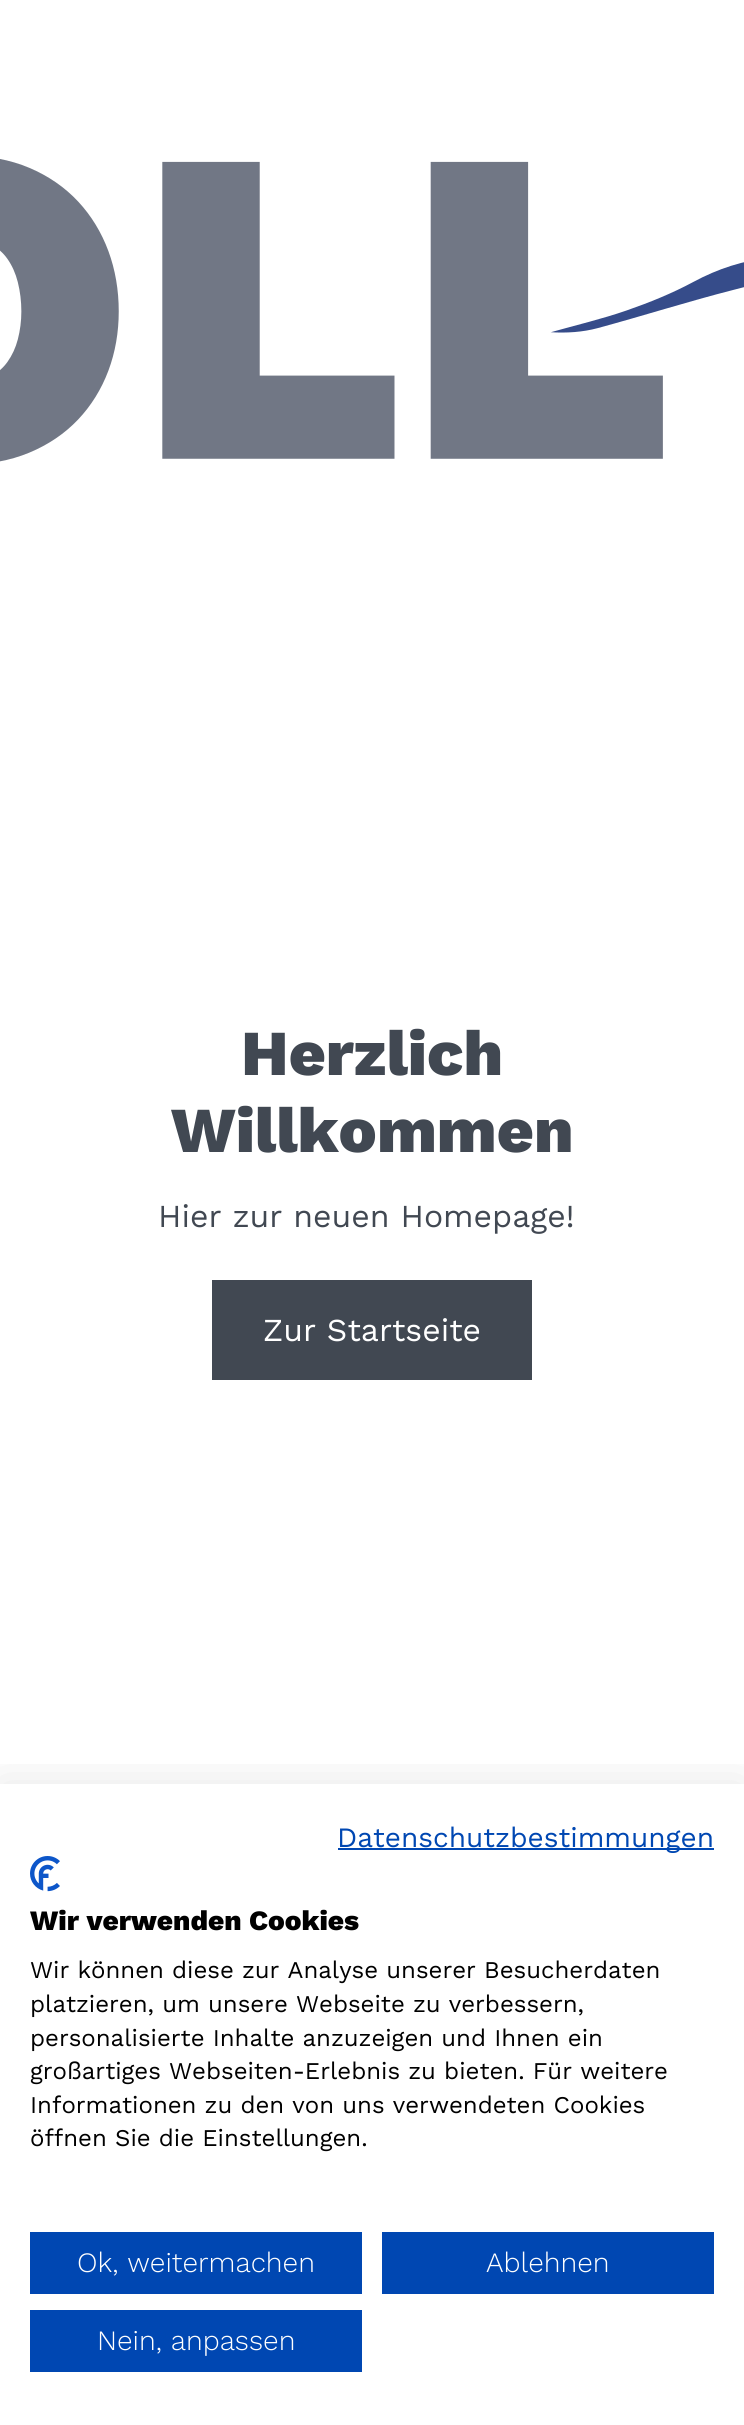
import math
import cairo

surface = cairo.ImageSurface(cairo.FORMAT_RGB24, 744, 2425)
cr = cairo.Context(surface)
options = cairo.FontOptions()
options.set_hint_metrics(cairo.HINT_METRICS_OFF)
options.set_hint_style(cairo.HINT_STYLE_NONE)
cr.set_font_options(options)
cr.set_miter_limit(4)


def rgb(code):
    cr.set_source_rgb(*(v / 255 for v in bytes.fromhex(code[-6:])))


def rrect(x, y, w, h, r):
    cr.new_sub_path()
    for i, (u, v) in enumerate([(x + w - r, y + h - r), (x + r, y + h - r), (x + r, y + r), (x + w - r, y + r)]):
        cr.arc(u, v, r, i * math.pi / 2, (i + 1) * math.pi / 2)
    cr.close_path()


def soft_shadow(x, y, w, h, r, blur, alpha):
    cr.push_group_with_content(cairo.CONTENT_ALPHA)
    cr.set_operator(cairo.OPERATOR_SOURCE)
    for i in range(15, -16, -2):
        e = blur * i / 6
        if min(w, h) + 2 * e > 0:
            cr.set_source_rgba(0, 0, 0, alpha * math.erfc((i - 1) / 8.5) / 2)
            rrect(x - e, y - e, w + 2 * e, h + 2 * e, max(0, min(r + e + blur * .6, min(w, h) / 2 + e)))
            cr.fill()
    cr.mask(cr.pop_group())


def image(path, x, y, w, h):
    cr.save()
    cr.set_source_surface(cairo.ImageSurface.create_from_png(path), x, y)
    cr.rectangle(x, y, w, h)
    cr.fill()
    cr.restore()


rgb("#ffffff")
cr.paint()
image("img/1.png", 0, 159, 744, 303)
rgb("#414852")
cr.rectangle(212, 1280, 320, 100)
cr.fill()
cr.save()
cr.rectangle(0, 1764, 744, 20)
cr.clip()
rgb("#000000")
soft_shadow(0, 1784, 744, 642, 0, 24, 0.1)
cr.restore()
rgb("#0047b2")
cr.rectangle(338, 1848, 376, 2)
cr.fill()
image("img/2.png", 30, 1856, 30, 36)
for x, y, w, h, color in [
    (30, 2232, 332, 62, "#0047b2"),
    (382, 2232, 332, 62, "#0047b2"),
    (30, 2310, 332, 62, "#0047b2"),
]:
    rgb(color)
    cr.rectangle(x, y, w, h)
    cr.fill()
cr.select_font_face("Work Sans ExtraBold")
cr.set_font_size(64)
rgb("#414852")
cr.move_to(241, 1075)
cr.show_text("Herzlich")
cr.move_to(171, 1152)
cr.show_text("Willkommen")
cr.select_font_face("Work Sans")
cr.set_font_size(32)
cr.move_to(158, 1227)
cr.show_text("Hier zur neuen Homepage!")
rgb("#ffffff")
cr.move_to(263, 1341)
cr.show_text("Zur Startseite")
cr.set_font_size(28)
rgb("#0047b2")
cr.move_to(337, 1847)
cr.show_text("Datenschutzbestimmungen")
cr.select_font_face("Work Sans ExtraBold")
rgb("#000000")
cr.move_to(30, 1930)
cr.show_text("Wir verwenden Cookies")
cr.select_font_face("Work Sans")
cr.set_font_size(24)
for x, y, s in [
    (30, 1978, "Wir können diese zur Analyse unserer Besucherdaten"),
    (30, 2012, "platzieren, um unsere Webseite zu verbessern,"),
    (30, 2046, "personalisierte Inhalte anzuzeigen und Ihnen ein"),
    (30, 2079, "großartiges Webseiten-Erlebnis zu bieten. Für weitere"),
    (30, 2113, "Informationen zu den von uns verwendeten Cookies"),
    (30, 2146, "öffnen Sie die Einstellungen."),
]:
    cr.move_to(x, y)
    cr.show_text(s)
cr.select_font_face("Work Sans Light")
cr.set_font_size(28)
rgb("#ffffff")
for x, y, s in [
    (77, 2272, "Ok, weitermachen"),
    (486, 2272, "Ablehnen"),
    (97, 2350, "Nein, anpassen"),
]:
    cr.move_to(x, y)
    cr.show_text(s)
surface.write_to_png("page.png")
